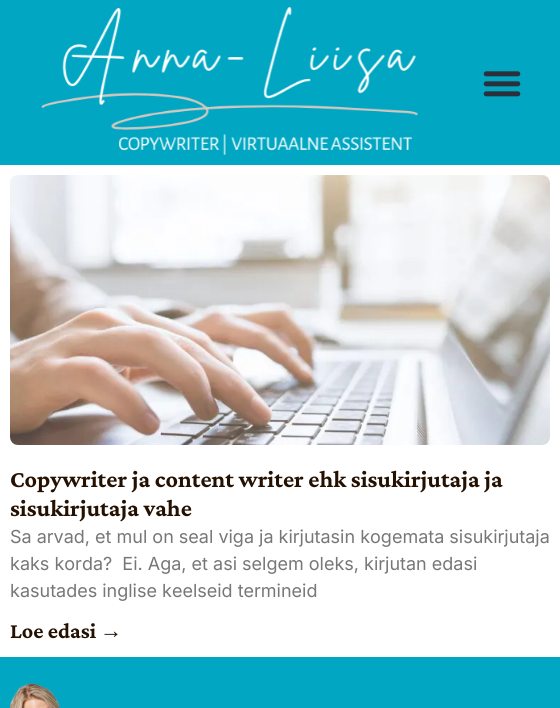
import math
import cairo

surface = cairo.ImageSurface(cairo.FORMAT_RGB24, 560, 708)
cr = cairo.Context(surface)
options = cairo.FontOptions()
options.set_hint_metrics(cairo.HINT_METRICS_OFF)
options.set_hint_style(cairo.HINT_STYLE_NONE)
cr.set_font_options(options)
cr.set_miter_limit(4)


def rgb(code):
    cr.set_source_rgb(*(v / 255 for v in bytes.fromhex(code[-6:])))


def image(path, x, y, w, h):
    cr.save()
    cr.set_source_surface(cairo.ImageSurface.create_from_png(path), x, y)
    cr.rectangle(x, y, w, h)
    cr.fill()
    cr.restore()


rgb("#ffffff")
cr.paint()
rgb("#01a7c2")
cr.rectangle(0, 0, 560, 165)
cr.fill()
image("img/1.png", 41, 7, 377, 149)
image("img/2.png", 483, 71, 38, 26)
image("img/3.png", 10, 175, 540, 270)
cr.rectangle(0, 657, 560, 51)
cr.fill()
image("img/4.png", 10, 682, 51, 26)
cr.select_font_face("Crimson Pro", cairo.FONT_SLANT_NORMAL, cairo.FONT_WEIGHT_BOLD)
cr.set_font_size(24)
rgb("#251101")
cr.move_to(10, 487)
cr.show_text("Copywriter ja content writer ehk sisukirjutaja ja")
cr.move_to(10, 516)
cr.show_text("sisukirjutaja vahe")
cr.select_font_face("Inter")
cr.set_font_size(18)
rgb("#777777")
for x, y, s in [
    (10, 543, "Sa arvad, et mul on seal viga ja kirjutasin kogemata sisukirjutaja"),
    (10, 570, "kaks korda?  Ei. Aga, et asi selgem oleks, kirjutan edasi"),
    (10, 597, "kasutades inglise keelseid termineid"),
]:
    cr.move_to(x, y)
    cr.show_text(s)
cr.select_font_face("Crimson Pro", cairo.FONT_SLANT_NORMAL, cairo.FONT_WEIGHT_BOLD)
cr.set_font_size(22)
rgb("#251101")
cr.move_to(10, 638)
cr.show_text("Loe edasi")
cr.select_font_face("Liberation Sans", cairo.FONT_SLANT_NORMAL, cairo.FONT_WEIGHT_BOLD)
cr.move_to(100, 638)
cr.show_text("→")
surface.write_to_png("page.png")
